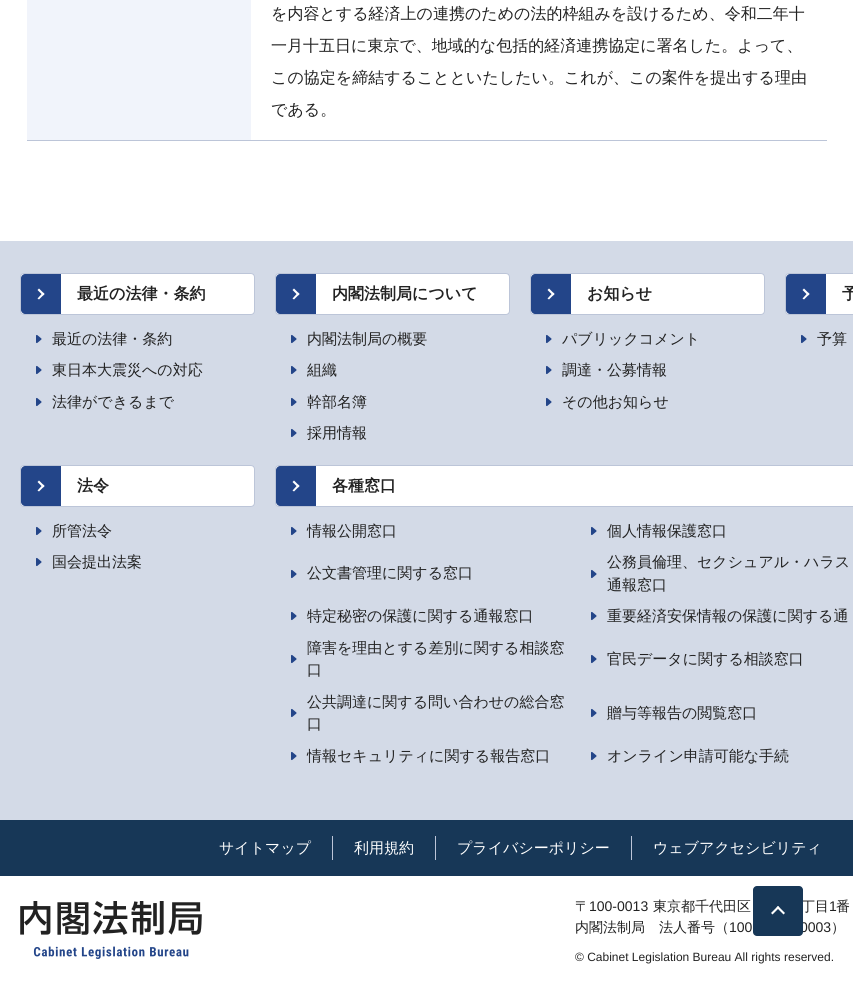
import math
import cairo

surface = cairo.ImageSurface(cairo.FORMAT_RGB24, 853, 986)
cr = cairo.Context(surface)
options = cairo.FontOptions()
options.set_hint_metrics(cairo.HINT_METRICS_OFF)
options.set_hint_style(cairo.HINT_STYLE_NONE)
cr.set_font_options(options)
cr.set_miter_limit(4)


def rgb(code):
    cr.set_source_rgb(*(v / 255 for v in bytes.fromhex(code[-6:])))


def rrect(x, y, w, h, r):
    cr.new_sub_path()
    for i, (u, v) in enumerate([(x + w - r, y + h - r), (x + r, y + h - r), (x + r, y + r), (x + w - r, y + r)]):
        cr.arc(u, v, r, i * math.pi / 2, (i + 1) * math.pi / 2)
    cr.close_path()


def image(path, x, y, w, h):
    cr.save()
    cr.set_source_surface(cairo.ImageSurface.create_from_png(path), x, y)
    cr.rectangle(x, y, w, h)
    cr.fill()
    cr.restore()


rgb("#ffffff")
cr.paint()
for x, y, w, h, color in [
    (27, 0, 224, 140, "#f1f4fb"),
    (27, 140, 800, 1, "#bcc5d8"),
    (0, 241, 853, 579, "#d3dae7"),
]:
    rgb(color)
    cr.rectangle(x, y, w, h)
    cr.fill()
rgb("#ffffff")
rrect(20.5, 273.5, 234, 41, 3.5)
cr.fill_preserve()
rgb("#bcc5d8")
cr.set_line_width(1)
cr.stroke()
rgb("#234589")
cr.new_path()
cr.move_to(25, 274)
cr.line_to(61, 274)
cr.line_to(61, 314)
cr.line_to(25, 314)
cr.curve_to(23, 314, 21, 312, 21, 310)
cr.line_to(21, 278)
cr.curve_to(21, 276, 23, 274, 25, 274)
cr.close_path()
cr.fill()
rgb("#ffffff")
cr.new_path()
cr.move_to(39, 288.5)
cr.line_to(44.5, 294)
cr.line_to(43, 295.5)
cr.line_to(37.5, 290)
cr.close_path()
cr.fill()
cr.new_path()
cr.move_to(43, 292.5)
cr.line_to(44.5, 294)
cr.line_to(39, 299.5)
cr.line_to(37.5, 298.5)
cr.close_path()
cr.fill()
image("img/1.png", 36, 334, 6, 10)
image("img/1.png", 36, 365, 6, 10)
image("img/1.png", 36, 397, 6, 10)
rrect(275.5, 273.5, 234, 41, 3.5)
cr.fill_preserve()
rgb("#bcc5d8")
cr.stroke()
rgb("#234589")
cr.new_path()
cr.move_to(280, 274)
cr.line_to(316, 274)
cr.line_to(316, 314)
cr.line_to(280, 314)
cr.curve_to(278, 314, 276, 312, 276, 310)
cr.line_to(276, 278)
cr.curve_to(276, 276, 278, 274, 280, 274)
cr.close_path()
cr.fill()
rgb("#ffffff")
cr.new_path()
cr.move_to(294, 288.5)
cr.line_to(299.5, 294)
cr.line_to(298, 295.5)
cr.line_to(292.5, 290)
cr.close_path()
cr.fill()
cr.new_path()
cr.move_to(298, 292.5)
cr.line_to(299.5, 294)
cr.line_to(294, 299.5)
cr.line_to(292.5, 298.5)
cr.close_path()
cr.fill()
image("img/1.png", 291, 334, 6, 10)
image("img/1.png", 291, 365, 6, 10)
image("img/1.png", 291, 397, 6, 10)
image("img/1.png", 291, 428, 6, 10)
rrect(530.5, 273.5, 234, 41, 3.5)
cr.fill_preserve()
rgb("#bcc5d8")
cr.stroke()
rgb("#234589")
cr.new_path()
cr.move_to(535, 274)
cr.line_to(571, 274)
cr.line_to(571, 314)
cr.line_to(535, 314)
cr.curve_to(533, 314, 531, 312, 531, 310)
cr.line_to(531, 278)
cr.curve_to(531, 276, 533, 274, 535, 274)
cr.close_path()
cr.fill()
rgb("#ffffff")
cr.new_path()
cr.move_to(549, 288.5)
cr.line_to(554.5, 294)
cr.line_to(553, 295.5)
cr.line_to(547.5, 290)
cr.close_path()
cr.fill()
cr.new_path()
cr.move_to(553, 292.5)
cr.line_to(554.5, 294)
cr.line_to(549, 299.5)
cr.line_to(547.5, 298.5)
cr.close_path()
cr.fill()
image("img/1.png", 546, 334, 6, 10)
image("img/1.png", 546, 365, 6, 10)
image("img/1.png", 546, 397, 6, 10)
rrect(785.5, 273.5, 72, 41, 3.5)
cr.fill_preserve()
rgb("#bcc5d8")
cr.stroke()
rgb("#234589")
cr.new_path()
cr.move_to(790, 274)
cr.line_to(826, 274)
cr.line_to(826, 314)
cr.line_to(790, 314)
cr.curve_to(788, 314, 786, 312, 786, 310)
cr.line_to(786, 278)
cr.curve_to(786, 276, 788, 274, 790, 274)
cr.close_path()
cr.fill()
rgb("#ffffff")
cr.new_path()
cr.move_to(804, 288.5)
cr.line_to(809.5, 294)
cr.line_to(808, 295.5)
cr.line_to(802.5, 290)
cr.close_path()
cr.fill()
cr.new_path()
cr.move_to(808, 292.5)
cr.line_to(809.5, 294)
cr.line_to(804, 299.5)
cr.line_to(802.5, 298.5)
cr.close_path()
cr.fill()
image("img/1.png", 801, 334, 6, 10)
rrect(20.5, 465.5, 234, 41, 3.5)
cr.fill_preserve()
rgb("#bcc5d8")
cr.stroke()
rgb("#234589")
cr.new_path()
cr.move_to(25, 466)
cr.line_to(61, 466)
cr.line_to(61, 506)
cr.line_to(25, 506)
cr.curve_to(23, 506, 21, 504, 21, 502)
cr.line_to(21, 470)
cr.curve_to(21, 468, 23, 466, 25, 466)
cr.close_path()
cr.fill()
rgb("#ffffff")
cr.new_path()
cr.move_to(39, 480.5)
cr.line_to(44.5, 486)
cr.line_to(43, 487.5)
cr.line_to(37.5, 482)
cr.close_path()
cr.fill()
cr.new_path()
cr.move_to(43, 484.5)
cr.line_to(44.5, 486)
cr.line_to(39, 491.5)
cr.line_to(37.5, 490.5)
cr.close_path()
cr.fill()
image("img/1.png", 36, 526, 6, 10)
image("img/1.png", 36, 557, 6, 10)
rrect(275.5, 465.5, 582, 41, 3.5)
cr.fill_preserve()
rgb("#bcc5d8")
cr.stroke()
rgb("#234589")
cr.new_path()
cr.move_to(280, 466)
cr.line_to(316, 466)
cr.line_to(316, 506)
cr.line_to(280, 506)
cr.curve_to(278, 506, 276, 504, 276, 502)
cr.line_to(276, 470)
cr.curve_to(276, 468, 278, 466, 280, 466)
cr.close_path()
cr.fill()
rgb("#ffffff")
cr.new_path()
cr.move_to(294, 480.5)
cr.line_to(299.5, 486)
cr.line_to(298, 487.5)
cr.line_to(292.5, 482)
cr.close_path()
cr.fill()
cr.new_path()
cr.move_to(298, 484.5)
cr.line_to(299.5, 486)
cr.line_to(294, 491.5)
cr.line_to(292.5, 490.5)
cr.close_path()
cr.fill()
image("img/1.png", 291, 526, 6, 10)
image("img/1.png", 591, 526, 6, 10)
image("img/1.png", 291, 569, 6, 10)
image("img/1.png", 591, 569, 6, 10)
image("img/1.png", 291, 611, 6, 10)
image("img/1.png", 591, 611, 6, 10)
image("img/1.png", 291, 654, 6, 10)
image("img/1.png", 591, 654, 6, 10)
image("img/1.png", 291, 708, 6, 10)
image("img/1.png", 591, 708, 6, 10)
image("img/1.png", 291, 751, 6, 10)
image("img/1.png", 591, 751, 6, 10)
for x, y, w, h, color in [
    (0, 820, 853, 56, "#173757"),
    (332, 836, 1, 24, "#bcc5d8"),
    (435, 836, 1, 24, "#bcc5d8"),
    (631, 836, 1, 24, "#bcc5d8"),
]:
    rgb(color)
    cr.rectangle(x, y, w, h)
    cr.fill()
image("img/2.png", 20, 901, 182, 58)
cr.select_font_face("WenQuanYi Zen Hei Medium")
cr.set_font_size(16)
rgb("#222222")
for x, y, s in [
    (271, 19, "を内容とする経済上の連携のための法的枠組みを設けるため、令和二年十"),
    (271, 51, "一月十五日に東京で、地域的な包括的経済連携協定に署名した。よって、"),
    (271, 83, "この協定を締結することといたしたい。これが、この案件を提出する理由"),
    (271, 115, "である。"),
]:
    cr.move_to(x, y)
    cr.show_text(s)
cr.select_font_face("WenQuanYi Zen Hei", cairo.FONT_SLANT_NORMAL, cairo.FONT_WEIGHT_BOLD)
cr.move_to(77, 299)
cr.show_text("最近の法律・条約")
cr.select_font_face("WenQuanYi Zen Hei Medium")
cr.set_font_size(15)
for x, y, s in [
    (52, 344, "最近の法律・条約"),
    (52, 375, "東日本大震災への対応"),
    (52, 407, "法律ができるまで"),
]:
    cr.move_to(x, y)
    cr.show_text(s)
cr.select_font_face("WenQuanYi Zen Hei", cairo.FONT_SLANT_NORMAL, cairo.FONT_WEIGHT_BOLD)
cr.set_font_size(16)
cr.move_to(332, 299)
cr.show_text("内閣法制局について")
cr.select_font_face("WenQuanYi Zen Hei Medium")
cr.set_font_size(15)
for x, y, s in [
    (307, 344, "内閣法制局の概要"),
    (307, 375, "組織"),
    (307, 407, "幹部名簿"),
    (307, 438, "採用情報"),
]:
    cr.move_to(x, y)
    cr.show_text(s)
cr.select_font_face("WenQuanYi Zen Hei", cairo.FONT_SLANT_NORMAL, cairo.FONT_WEIGHT_BOLD)
cr.set_font_size(16)
cr.move_to(587, 299)
cr.show_text("お知らせ")
cr.select_font_face("WenQuanYi Zen Hei Medium")
cr.set_font_size(15)
for x, y, s in [
    (562, 344, "パブリックコメント"),
    (562, 375, "調達・公募情報"),
    (562, 407, "その他お知らせ"),
]:
    cr.move_to(x, y)
    cr.show_text(s)
cr.select_font_face("WenQuanYi Zen Hei", cairo.FONT_SLANT_NORMAL, cairo.FONT_WEIGHT_BOLD)
cr.set_font_size(16)
cr.move_to(842, 299)
cr.show_text("予")
cr.select_font_face("WenQuanYi Zen Hei Medium")
cr.set_font_size(15)
cr.move_to(817, 344)
cr.show_text("予算")
cr.select_font_face("WenQuanYi Zen Hei", cairo.FONT_SLANT_NORMAL, cairo.FONT_WEIGHT_BOLD)
cr.set_font_size(16)
cr.move_to(77, 491)
cr.show_text("法令")
cr.select_font_face("WenQuanYi Zen Hei Medium")
cr.set_font_size(15)
cr.move_to(52, 536)
cr.show_text("所管法令")
cr.move_to(52, 567)
cr.show_text("国会提出法案")
cr.select_font_face("WenQuanYi Zen Hei", cairo.FONT_SLANT_NORMAL, cairo.FONT_WEIGHT_BOLD)
cr.set_font_size(16)
cr.move_to(332, 491)
cr.show_text("各種窓口")
cr.select_font_face("WenQuanYi Zen Hei Medium")
cr.set_font_size(15)
for x, y, s in [
    (307, 536, "情報公開窓口"),
    (607, 536, "個人情報保護窓口"),
    (307, 578, "公文書管理に関する窓口"),
    (607, 567, "公務員倫理、セクシュアル・ハラス"),
    (607, 590, "通報窓口"),
    (307, 621, "特定秘密の保護に関する通報窓口"),
    (607, 621, "重要経済安保情報の保護に関する通"),
    (307, 653, "障害を理由とする差別に関する相談窓"),
    (307, 675, "口"),
    (607, 664, "官民データに関する相談窓口"),
    (307, 707, "公共調達に関する問い合わせの総合窓"),
    (307, 729, "口"),
    (607, 718, "贈与等報告の閲覧窓口"),
    (307, 761, "情報セキュリティに関する報告窓口"),
    (607, 761, "オンライン申請可能な手続"),
]:
    cr.move_to(x, y)
    cr.show_text(s)
rgb("#ffffff")
for x, y, s in [
    (219, 853, "サイトマップ"),
    (354, 853, "利用規約"),
    (457, 853, "プライバシーポリシー"),
    (653, 853, "ウェブアクセシビリティ"),
]:
    cr.move_to(x, y)
    cr.show_text(s)
cr.set_font_size(14)
rgb("#222222")
cr.move_to(575, 911)
cr.show_text("〒")
cr.select_font_face("Liberation Sans")
cr.move_to(589, 911)
cr.show_text("100-0013")
cr.select_font_face("WenQuanYi Zen Hei Medium")
cr.move_to(653, 911)
cr.show_text("東京都千代田区")
cr.move_to(801, 911)
cr.show_text("丁目")
cr.select_font_face("Liberation Sans")
cr.move_to(829, 911)
cr.show_text("1")
cr.select_font_face("WenQuanYi Zen Hei Medium")
cr.move_to(836, 911)
cr.show_text("番")
cr.move_to(575, 932)
cr.show_text("内閣法制局　法人番号（")
cr.select_font_face("Liberation Sans")
cr.move_to(729, 932)
cr.show_text("100")
cr.move_to(800, 932)
cr.show_text("0003")
rgb("#173757")
rrect(753, 886, 50, 50, 4)
cr.fill()
rgb("#ffffff")
cr.new_path()
cr.move_to(778, 906)
cr.line_to(785, 913)
cr.line_to(783.5, 914.5)
cr.line_to(776.5, 907.5)
cr.close_path()
cr.fill()
cr.new_path()
cr.move_to(778, 906)
cr.line_to(779.5, 907.5)
cr.line_to(772.5, 914.5)
cr.line_to(771, 913)
cr.close_path()
cr.fill()
cr.select_font_face("WenQuanYi Zen Hei Medium")
rgb("#222222")
cr.move_to(831, 932)
cr.show_text("）")
cr.select_font_face("Liberation Sans")
cr.set_font_size(12)
cr.move_to(575, 961)
cr.show_text("© Cabinet Legislation Bureau All rights reserved.")
surface.write_to_png("page.png")
